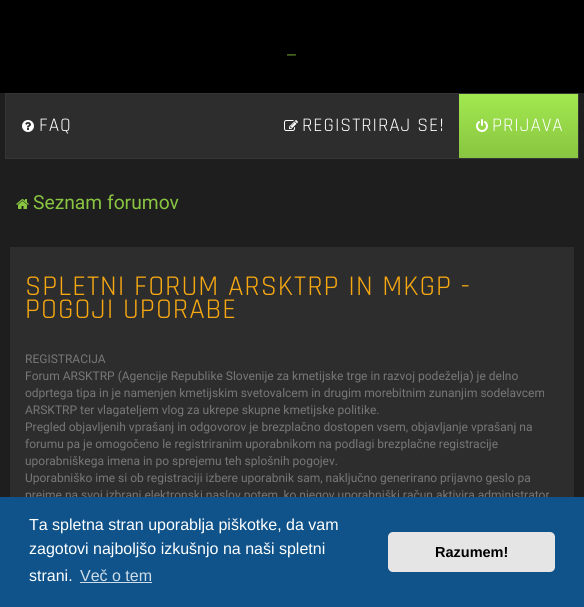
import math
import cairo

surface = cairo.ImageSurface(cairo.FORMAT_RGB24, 584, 607)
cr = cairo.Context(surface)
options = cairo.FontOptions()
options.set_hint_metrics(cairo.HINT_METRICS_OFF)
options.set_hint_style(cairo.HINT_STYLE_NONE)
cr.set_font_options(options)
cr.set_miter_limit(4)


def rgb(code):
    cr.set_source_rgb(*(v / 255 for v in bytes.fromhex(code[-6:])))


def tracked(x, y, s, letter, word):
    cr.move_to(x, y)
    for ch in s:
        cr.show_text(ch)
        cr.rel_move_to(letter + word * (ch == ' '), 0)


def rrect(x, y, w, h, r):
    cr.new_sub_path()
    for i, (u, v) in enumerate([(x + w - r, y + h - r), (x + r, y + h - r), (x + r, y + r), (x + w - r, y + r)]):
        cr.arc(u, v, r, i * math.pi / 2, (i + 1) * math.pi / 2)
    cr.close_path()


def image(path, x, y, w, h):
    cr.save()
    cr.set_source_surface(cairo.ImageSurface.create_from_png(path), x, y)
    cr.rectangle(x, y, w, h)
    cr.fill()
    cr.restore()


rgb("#1e1e1e")
cr.paint()
rgb("#000000")
cr.rectangle(0, 0, 584, 93)
cr.fill()
rgb("#2d2d2d")
cr.rectangle(6, 94, 453, 64)
cr.fill()
cr.rectangle(5.5, 93.5, 573, 65)
rgb("#353535")
cr.set_line_width(1)
cr.stroke()
image("img/1.png", 22, 120, 12, 12)
image("img/2.png", 284, 120, 14, 11)
gradient = cairo.LinearGradient(519, 158, 519, 94)
gradient.add_color_stop_rgba(0, 0.537, 0.773, 0.255, 1)
gradient.add_color_stop_rgba(1, 0.635, 0.91, 0.31, 1)
cr.set_source(gradient)
cr.rectangle(459, 94, 119, 64)
cr.fill()
image("img/3.png", 476, 119, 12, 13)
image("img/4.png", 16, 199, 13, 10)
rgb("#2d2d2d")
cr.rectangle(10, 247, 564, 250)
cr.fill()
cr.select_font_face("Rajdhani")
cr.set_font_size(24)
rgb("#89c541")
tracked(287, 53, "_", 2, 0)
cr.set_font_size(19.25)
rgb("#ffffff")
for x, y, s in [
    (39, 131, "FAQ"),
    (302, 131, "REGISTRIRAJ SE!"),
    (492, 131, "PRIJAVA"),
]:
    tracked(x, y, s, 1, 0)
cr.select_font_face("Roboto")
rgb("#89c541")
cr.move_to(33, 209)
cr.show_text("Seznam forumov")
cr.select_font_face("Rajdhani")
cr.set_font_size(28.75)
rgb("#f7a811")
tracked(25, 295, "SPLETNI FORUM ARSKTRP IN MKGP -", 1, 0)
tracked(25, 318, "POGOJI UPORABE", 1, 0)
cr.select_font_face("Roboto")
cr.set_font_size(12)
rgb("#777777")
for x, y, s in [
    (25, 363, "REGISTRACIJA"),
    (25, 380, "Forum ARSKTRP (Agencije Republike Slovenije za kmetijske trge in razvoj podeželja) je delno"),
    (25, 397, "odprtega tipa in je namenjen kmetijskim svetovalcem in drugim morebitnim zunanjim sodelavcem"),
    (25, 414, "ARSKTRP ter vlagateljem vlog za ukrepe skupne kmetijske politike."),
    (25, 431, "Pregled objavljenih vprašanj in odgovorov je brezplačno dostopen vsem, objavljanje vprašanj na"),
    (25, 448, "forumu pa je omogočeno le registriranim uporabnikom na podlagi brezplačne registracije"),
    (25, 465, "uporabniškega imena in po sprejemu teh splošnih pogojev."),
    (25, 482, "Uporabniško ime si ob registraciji izbere uporabnik sam, naključno generirano prijavno geslo pa"),
    (25, 499, "prejme na svoj izbrani elektronski naslov potem, ko njegov uporabniški račun aktivira administrator"),
]:
    cr.move_to(x, y)
    cr.show_text(s)
rgb("#0f538a")
cr.rectangle(0, 497, 584, 110)
cr.fill()
cr.select_font_face("Liberation Sans")
cr.set_font_size(16)
rgb("#ffffff")
for x, y, s in [
    (29, 530, "Ta spletna stran uporablja piškotke, da vam"),
    (29, 554, "zagotovi najboljšo izkušnjo na naši spletni"),
    (29, 581, "strani."),
]:
    cr.move_to(x, y)
    cr.show_text(s)
rgb("#cfdde8")
cr.move_to(80, 581)
cr.show_text("Več o tem")
cr.rectangle(80, 582, 72, 1)
cr.fill()
rgb("#e5e5e5")
rrect(388, 532, 167, 40, 5)
cr.fill()
cr.select_font_face("Liberation Sans", cairo.FONT_SLANT_NORMAL, cairo.FONT_WEIGHT_BOLD)
cr.set_font_size(14.5)
rgb("#000000")
cr.move_to(435, 557)
cr.show_text("Razumem!")
surface.write_to_png("page.png")
